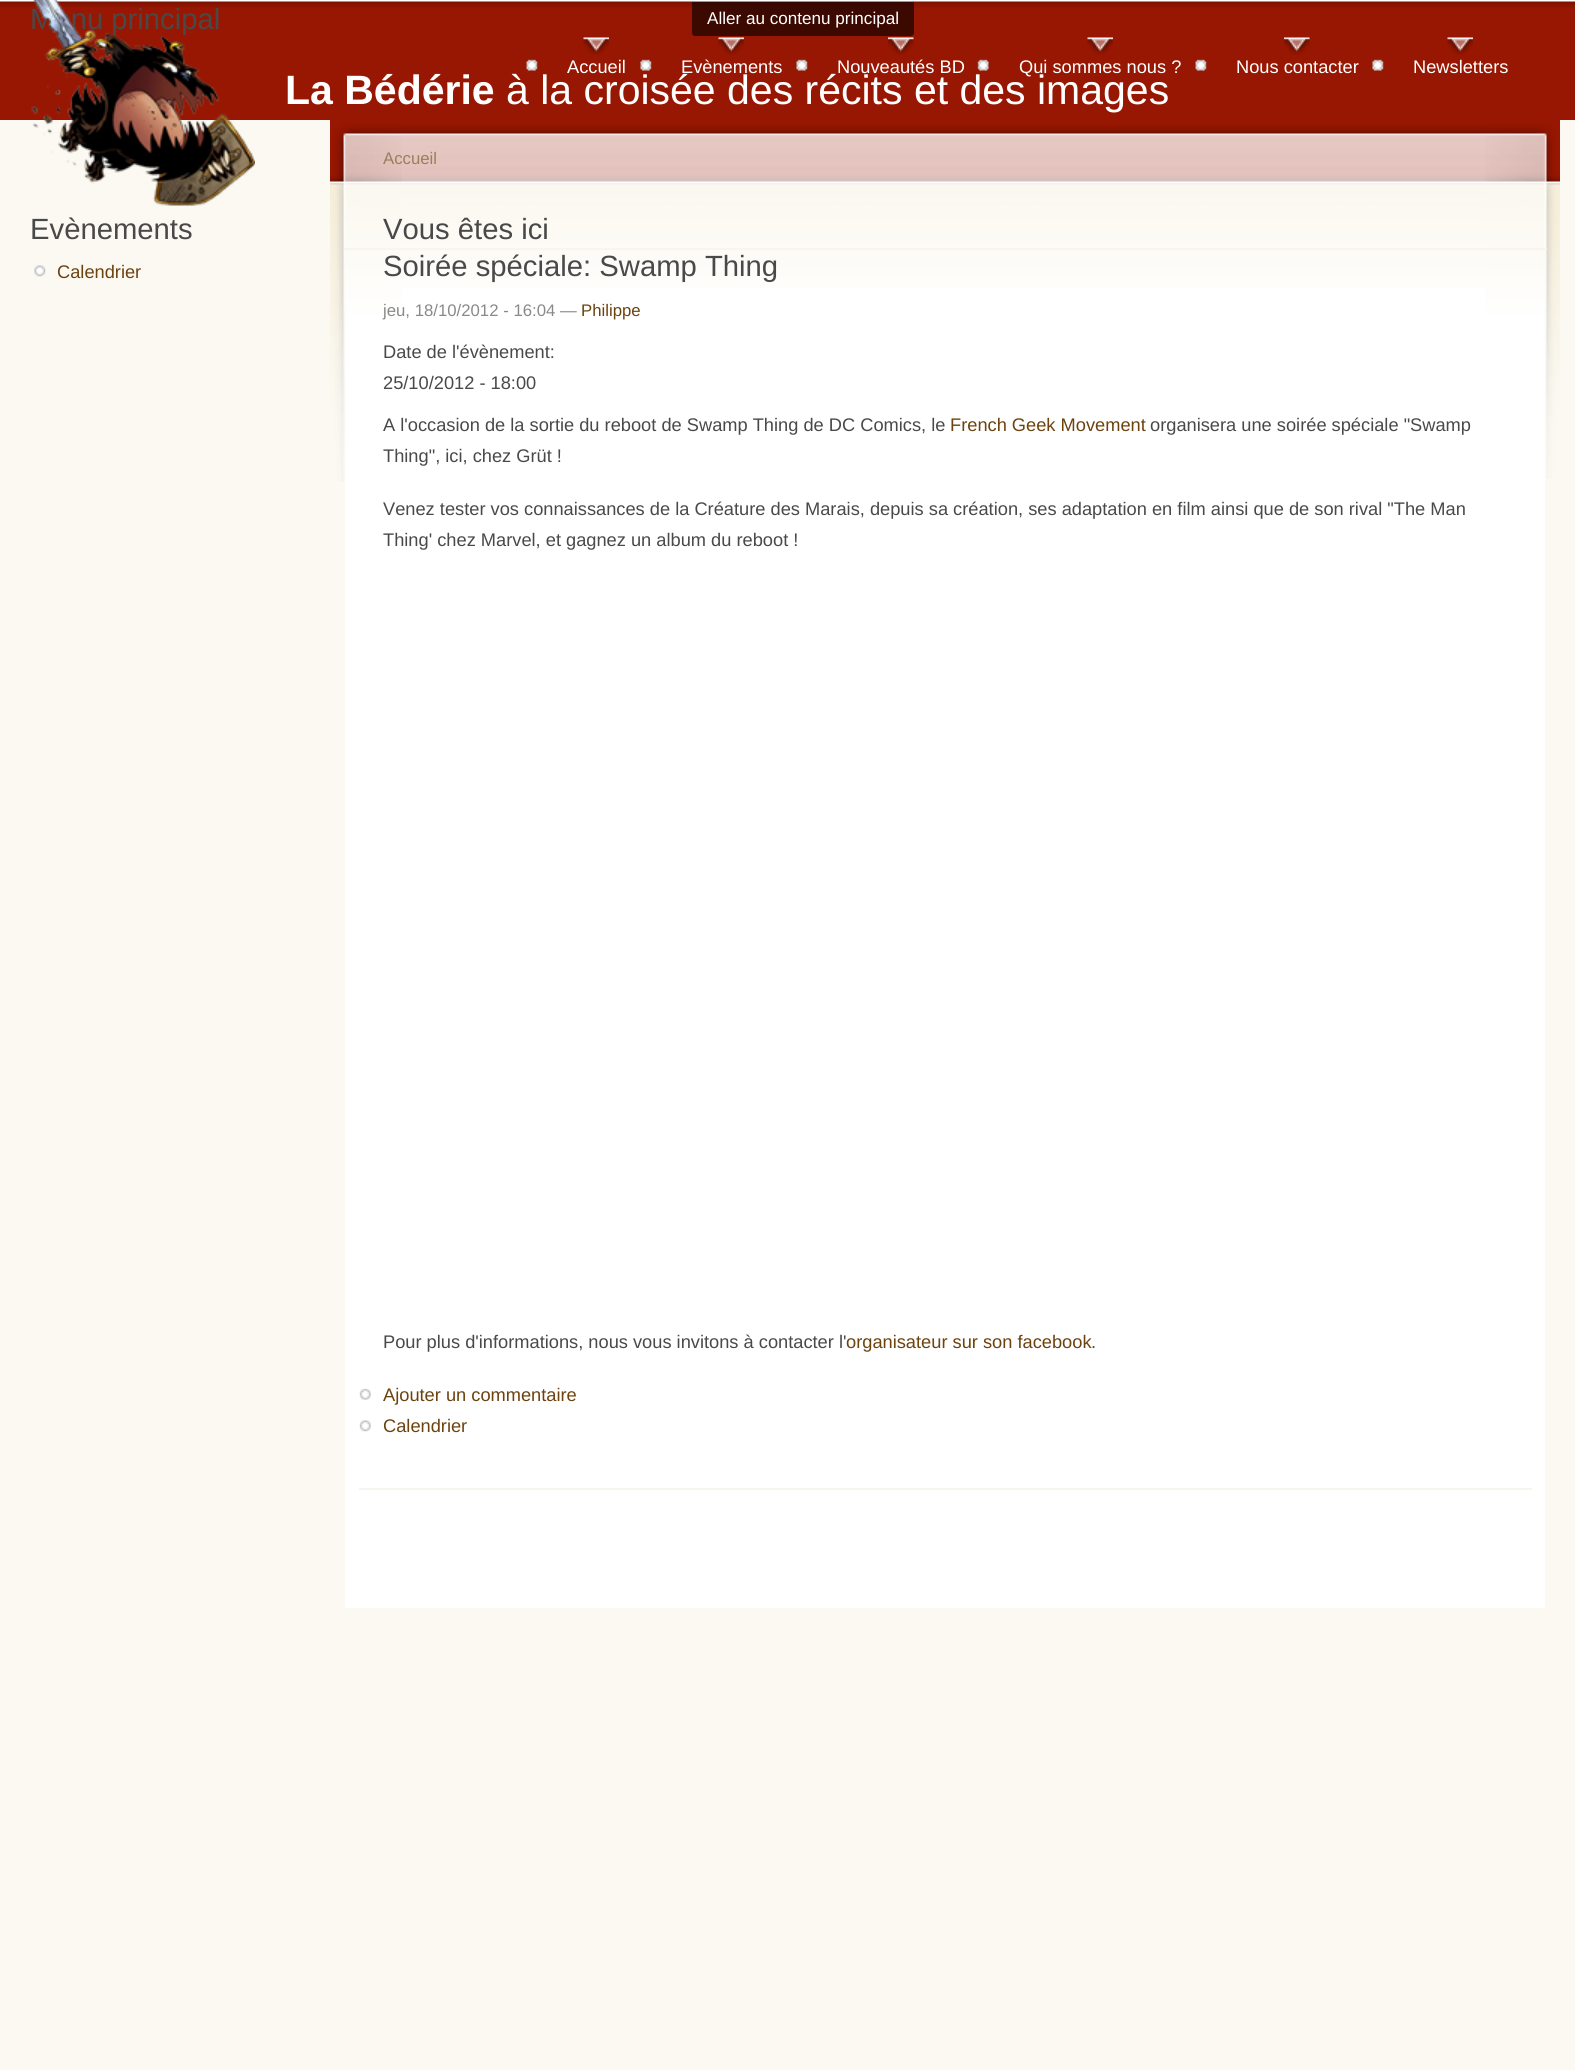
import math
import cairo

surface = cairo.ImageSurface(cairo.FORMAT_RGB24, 1575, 2070)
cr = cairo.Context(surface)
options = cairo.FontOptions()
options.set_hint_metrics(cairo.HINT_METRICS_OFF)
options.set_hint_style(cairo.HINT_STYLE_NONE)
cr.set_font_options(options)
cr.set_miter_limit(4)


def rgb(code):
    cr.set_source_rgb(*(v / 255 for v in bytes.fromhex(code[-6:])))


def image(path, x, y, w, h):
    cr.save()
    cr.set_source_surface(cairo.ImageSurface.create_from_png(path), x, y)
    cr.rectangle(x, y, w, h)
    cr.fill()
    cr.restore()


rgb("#fbf9f2")
cr.paint()
image("img/1.png", 0, 0, 1575, 120)
image("img/2.png", 526, 59, 12, 12)
image("img/3.png", 583, 37, 26, 18)
image("img/4.png", 640, 59, 12, 12)
image("img/3.png", 718, 37, 26, 18)
image("img/4.png", 796, 59, 12, 12)
image("img/5.png", 888, 37, 26, 18)
image("img/6.png", 977, 59, 12, 12)
image("img/7.png", 1087, 37, 26, 18)
image("img/2.png", 1195, 59, 12, 12)
image("img/8.png", 1284, 37, 26, 18)
image("img/4.png", 1372, 59, 12, 12)
image("img/3.png", 1447, 37, 26, 18)
image("img/10.png", 34, 265, 12, 12)
rgb("#ffffff")
cr.rectangle(345, 288, 1200, 1320)
cr.fill()
image("img/11.png", 402, 120, 1083, 168)
image("img/12.png", 1485, 120, 75, 359)
image("img/13.png", 330, 120, 72, 362)
rgb("#f7f5ee")
cr.rectangle(344, 248, 1203, 2)
cr.fill()
cr.rectangle(359, 1488, 1173, 2)
cr.fill()
image("img/14.png", 359, 1388, 12, 12)
image("img/15.png", 359, 1420, 12, 12)
cr.set_source_rgba(0, 0, 0, 0.6)
cr.new_path()
cr.move_to(692, 2)
cr.line_to(914, 2)
cr.line_to(914, 33)
cr.curve_to(914, 34.5, 912.5, 36, 911, 36)
cr.line_to(695, 36)
cr.curve_to(693.5, 36, 692, 34.5, 692, 33)
cr.close_path()
cr.fill()
cr.select_font_face("Liberation Sans")
cr.set_font_size(29.25)
rgb("#494949")
cr.move_to(30, 29)
cr.show_text("Menu principal")
cr.set_font_size(18.25)
rgb("#ffffff")
for x, y, s in [
    (567, 73, "Accueil"),
    (681, 73, "Evènements"),
    (837, 73, "Nouveautés BD"),
    (1019, 73, "Qui sommes nous ?"),
    (1236, 73, "Nous contacter"),
    (1413, 73, "Newsletters"),
]:
    cr.move_to(x, y)
    cr.show_text(s)
image("img/9.png", 31, 0, 224, 206)
cr.select_font_face("Liberation Sans", cairo.FONT_SLANT_NORMAL, cairo.FONT_WEIGHT_BOLD)
cr.set_font_size(41)
cr.move_to(285, 104)
cr.show_text("La Bédérie")
cr.select_font_face("Liberation Sans")
cr.move_to(506, 104)
cr.show_text("à la croisée des récits et des images")
cr.set_font_size(29.25)
rgb("#494949")
cr.move_to(30, 239)
cr.show_text("Evènements")
cr.set_font_size(18.25)
rgb("#6c420e")
cr.move_to(57, 278)
cr.show_text("Calendrier")
cr.set_font_size(16.75)
rgb("#988059")
cr.move_to(383, 164)
cr.show_text("Accueil")
cr.set_font_size(29.25)
rgb("#494949")
cr.move_to(383, 239)
cr.show_text("Vous êtes ici")
cr.move_to(383, 276)
cr.show_text("Soirée spéciale: Swamp Thing")
cr.set_font_size(16.75)
rgb("#898989")
cr.move_to(383, 316)
cr.show_text("jeu, 18/10/2012 - 16:04 —")
rgb("#6c420e")
cr.move_to(581, 316)
cr.show_text("Philippe")
cr.set_font_size(18.25)
rgb("#494949")
for x, y, s in [
    (383, 358, "Date de l'évènement:"),
    (383, 389, "25/10/2012 - 18:00"),
    (383, 431, "A l'occasion de la sortie du reboot de Swamp Thing de DC Comics, le"),
]:
    cr.move_to(x, y)
    cr.show_text(s)
rgb("#6c420e")
cr.move_to(950, 431)
cr.show_text("French Geek Movement")
rgb("#494949")
for x, y, s in [
    (1150, 431, "organisera une soirée spéciale \"Swamp"),
    (383, 462, "Thing\", ici, chez Grüt !"),
    (383, 515, "Venez tester vos connaissances de la Créature des Marais, depuis sa création, ses adaptation en film ainsi que de son rival \"The Man"),
    (383, 546, "Thing' chez Marvel, et gagnez un album du reboot !"),
    (383, 1348, "Pour plus d'informations, nous vous invitons à contacter l'"),
]:
    cr.move_to(x, y)
    cr.show_text(s)
rgb("#6c420e")
cr.move_to(846, 1348)
cr.show_text("organisateur sur son facebook")
rgb("#494949")
cr.move_to(1091, 1348)
cr.show_text(".")
rgb("#6c420e")
cr.move_to(383, 1401)
cr.show_text("Ajouter un commentaire")
cr.move_to(383, 1432)
cr.show_text("Calendrier")
cr.set_font_size(17.1)
rgb("#ffffff")
cr.move_to(707, 24)
cr.show_text("Aller au contenu principal")
surface.write_to_png("page.png")
